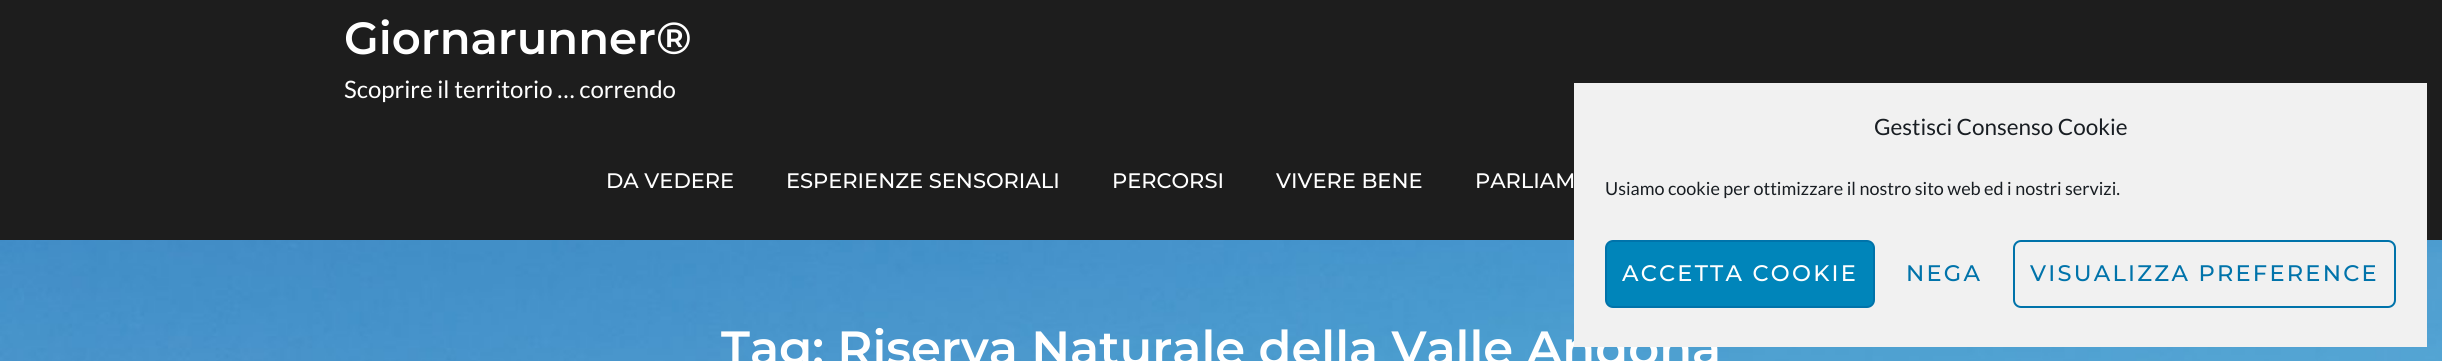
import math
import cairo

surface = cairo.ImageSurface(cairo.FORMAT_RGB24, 2442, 361)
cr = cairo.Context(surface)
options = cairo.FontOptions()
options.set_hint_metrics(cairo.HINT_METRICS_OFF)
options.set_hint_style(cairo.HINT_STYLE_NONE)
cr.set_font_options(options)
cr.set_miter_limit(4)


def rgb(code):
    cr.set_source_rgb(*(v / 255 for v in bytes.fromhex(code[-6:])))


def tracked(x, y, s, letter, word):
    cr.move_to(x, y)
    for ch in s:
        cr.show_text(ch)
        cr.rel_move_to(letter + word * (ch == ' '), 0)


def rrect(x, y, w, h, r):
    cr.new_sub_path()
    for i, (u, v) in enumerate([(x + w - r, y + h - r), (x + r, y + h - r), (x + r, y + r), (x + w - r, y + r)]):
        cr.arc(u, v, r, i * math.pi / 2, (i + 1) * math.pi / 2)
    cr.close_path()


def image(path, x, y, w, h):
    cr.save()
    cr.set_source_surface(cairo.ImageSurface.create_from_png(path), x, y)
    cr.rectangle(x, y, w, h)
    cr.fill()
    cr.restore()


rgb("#ffffff")
cr.paint()
image("img/1.png", 0, 240, 2442, 121)
rgb("#1d1d1d")
cr.rectangle(0, 0, 2442, 240)
cr.fill()
cr.select_font_face("Montserrat SemiBold")
cr.set_font_size(45)
rgb("#ffffff")
cr.move_to(344, 54)
cr.show_text("Giornarunner®")
cr.select_font_face("Lato")
cr.set_font_size(24)
cr.move_to(344, 98)
cr.show_text("Scoprire il territorio … correndo")
cr.select_font_face("Montserrat Medium")
cr.set_font_size(21)
for x, y, s in [
    (606, 188, "DA VEDERE"),
    (786, 188, "ESPERIENZE SENSORIALI"),
    (1112, 188, "PERCORSI"),
    (1276, 188, "VIVERE BENE"),
    (1475, 188, "PARLIAM"),
]:
    cr.move_to(x, y)
    cr.show_text(s)
cr.select_font_face("Montserrat SemiBold")
cr.set_font_size(48)
cr.move_to(721, 365)
cr.show_text("Tag: Riserva Naturale della Valle Andona")
rgb("#f1f1f1")
cr.rectangle(1574, 83, 853, 264)
cr.fill()
cr.select_font_face("Lato")
cr.set_font_size(22.5)
rgb("#191e23")
cr.move_to(1874, 135)
cr.show_text("Gestisci Consenso Cookie")
cr.set_font_size(18)
cr.move_to(1605, 195)
cr.show_text("Usiamo cookie per ottimizzare il nostro sito web ed i nostri servizi.")
rgb("#0085ba")
rrect(1606, 241, 268, 66, 7)
cr.fill_preserve()
rgb("#0073aa")
cr.stroke()
cr.select_font_face("Montserrat Medium")
cr.set_font_size(22.5)
rgb("#ffffff")
tracked(1622, 281, "ACCETTA COOKIE", 2.25, 0)
rgb("#0073aa")
tracked(1906, 281, "NEGA", 2.25, 0)
rrect(2014, 241, 381, 66, 7)
cr.stroke()
tracked(2030, 281, "VISUALIZZA PREFERENCE", 2.25, 0)
surface.write_to_png("page.png")
